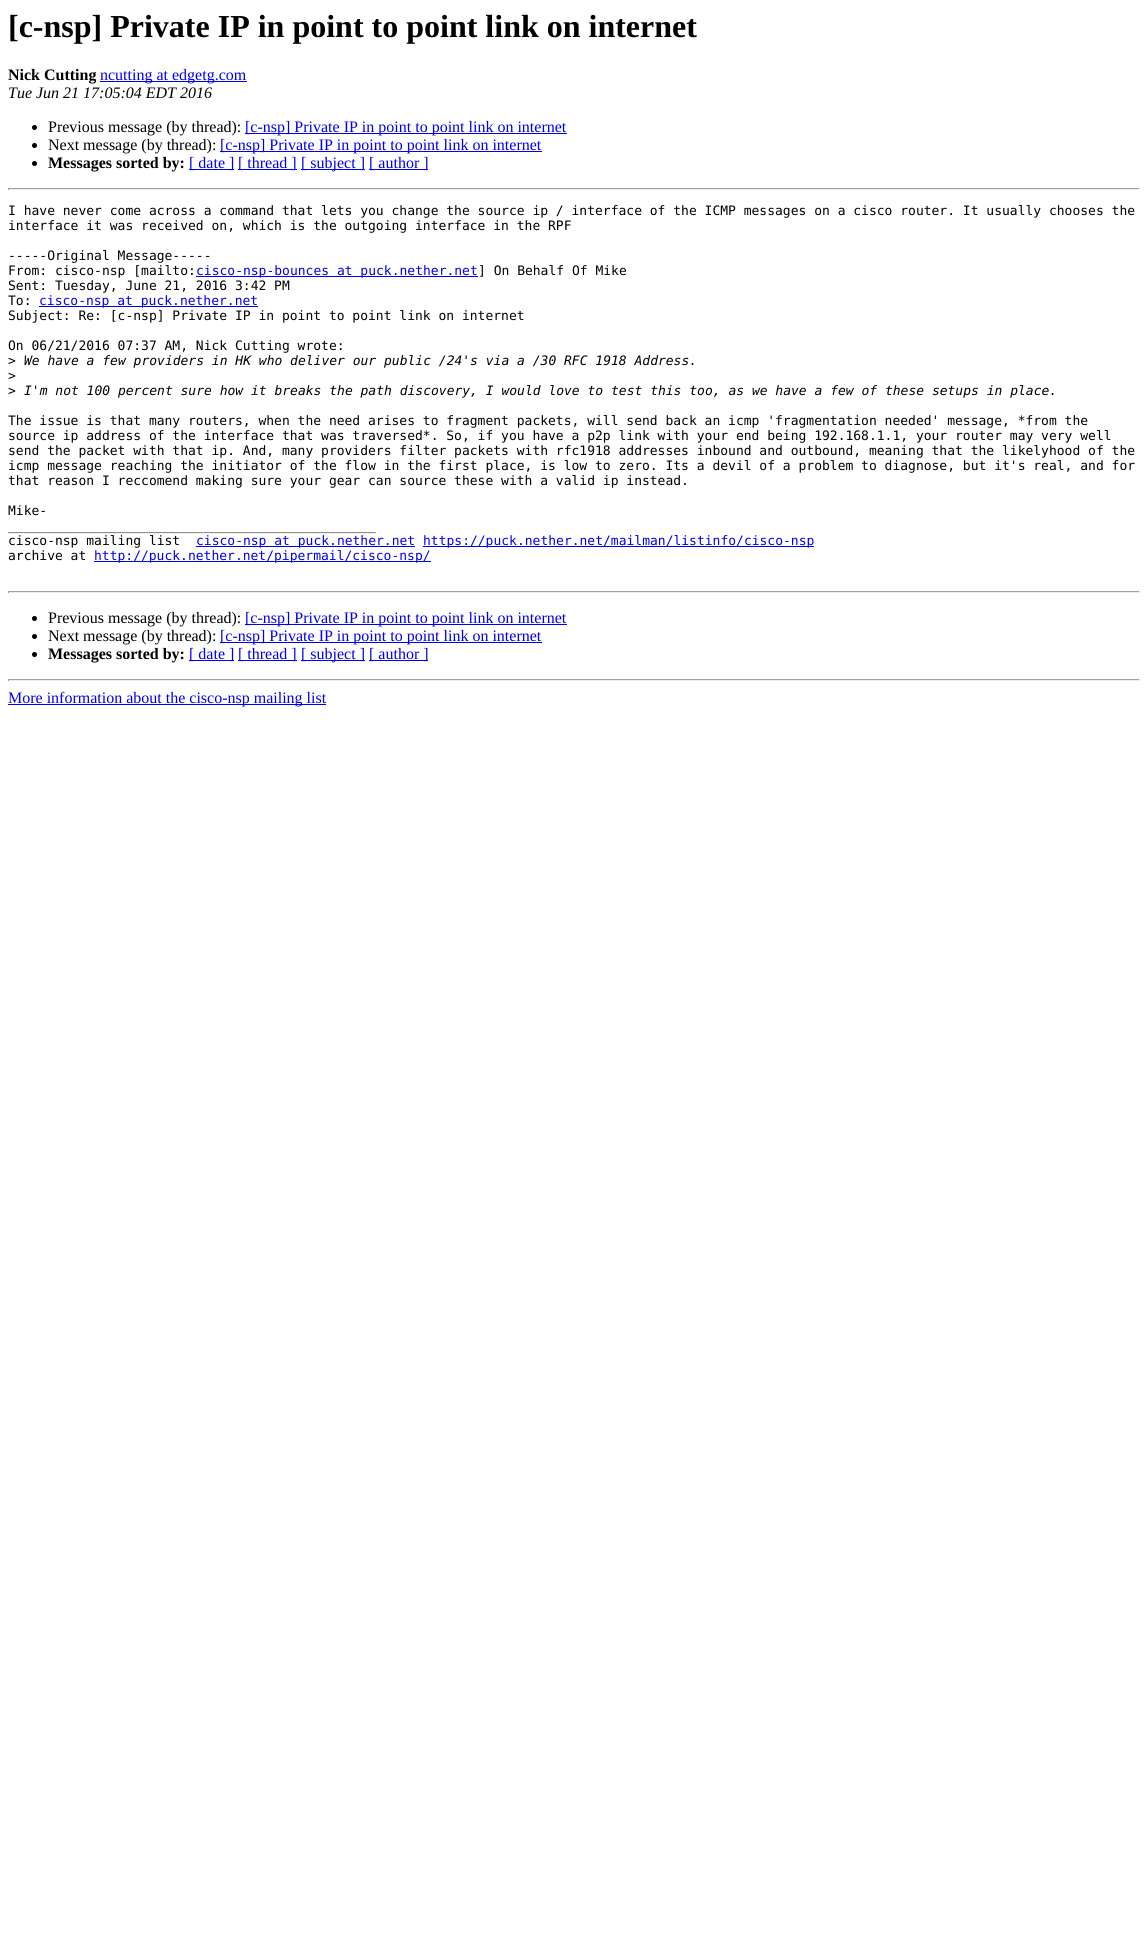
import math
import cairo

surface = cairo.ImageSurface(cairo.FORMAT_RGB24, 1148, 1954)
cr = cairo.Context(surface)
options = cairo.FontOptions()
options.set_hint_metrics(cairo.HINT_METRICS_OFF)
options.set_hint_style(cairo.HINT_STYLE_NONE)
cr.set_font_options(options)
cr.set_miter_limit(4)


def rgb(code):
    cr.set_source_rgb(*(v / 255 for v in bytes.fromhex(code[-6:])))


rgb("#ffffff")
cr.paint()
rgb("#0000ee")
cr.rectangle(100, 81, 147, 1)
cr.fill()
rgb("#000000")
cr.arc(34.5, 127.5, 2.5, 0, 2 * math.pi)
cr.fill()
rgb("#0000ee")
cr.rectangle(245, 133, 322, 1)
cr.fill()
rgb("#000000")
cr.arc(34.5, 145.5, 2.5, 0, 2 * math.pi)
cr.fill()
rgb("#0000ee")
cr.rectangle(220, 151, 322, 1)
cr.fill()
rgb("#000000")
cr.arc(34.5, 163.5, 2.5, 0, 2 * math.pi)
cr.fill()
for x, y, w, h, color in [
    (189, 169, 45, 1, "#0000ee"),
    (238, 169, 59, 1, "#0000ee"),
    (301, 169, 64, 1, "#0000ee"),
    (369, 169, 59, 1, "#0000ee"),
    (8, 188, 1132, 1, "#9f9f9f"),
    (1139, 188, 1, 2, "#eeeeee"),
    (8, 189, 1132, 1, "#eeeeee"),
    (8, 188, 1, 2, "#9f9f9f"),
    (196, 276, 282, 1, "#0000ee"),
    (39, 306, 219, 1, "#0000ee"),
    (196, 546, 219, 1, "#0000ee"),
    (423, 546, 391, 1, "#0000ee"),
    (94, 561, 337, 1, "#0000ee"),
    (8, 591, 1132, 1, "#9f9f9f"),
    (1139, 591, 1, 2, "#eeeeee"),
    (8, 592, 1132, 1, "#eeeeee"),
    (8, 591, 1, 2, "#9f9f9f"),
]:
    rgb(color)
    cr.rectangle(x, y, w, h)
    cr.fill()
rgb("#000000")
cr.arc(34.5, 618.5, 2.5, 0, 2 * math.pi)
cr.fill()
rgb("#0000ee")
cr.rectangle(245, 624, 322, 1)
cr.fill()
rgb("#000000")
cr.arc(34.5, 636.5, 2.5, 0, 2 * math.pi)
cr.fill()
rgb("#0000ee")
cr.rectangle(220, 642, 322, 1)
cr.fill()
rgb("#000000")
cr.arc(34.5, 654.5, 2.5, 0, 2 * math.pi)
cr.fill()
for x, y, w, h, color in [
    (189, 660, 45, 1, "#0000ee"),
    (238, 660, 59, 1, "#0000ee"),
    (301, 660, 64, 1, "#0000ee"),
    (369, 660, 59, 1, "#0000ee"),
    (8, 679, 1132, 1, "#9f9f9f"),
    (1139, 679, 1, 2, "#eeeeee"),
    (8, 680, 1132, 1, "#eeeeee"),
    (8, 679, 1, 2, "#9f9f9f"),
    (8, 704, 318, 1, "#0000ee"),
]:
    rgb(color)
    cr.rectangle(x, y, w, h)
    cr.fill()
cr.select_font_face("Liberation Serif", cairo.FONT_SLANT_NORMAL, cairo.FONT_WEIGHT_BOLD)
cr.set_font_size(32)
rgb("#000000")
cr.move_to(8, 37)
cr.show_text("[c-nsp] Private IP in point to point link on internet")
cr.set_font_size(16)
cr.move_to(8, 80)
cr.show_text("Nick Cutting")
cr.select_font_face("Liberation Serif")
rgb("#0000ee")
cr.move_to(100, 80)
cr.show_text("ncutting at edgetg.com")
cr.select_font_face("Liberation Serif", cairo.FONT_SLANT_ITALIC)
rgb("#000000")
cr.move_to(8, 98)
cr.show_text("Tue Jun 21 17:05:04 EDT 2016")
cr.select_font_face("Liberation Serif")
cr.move_to(48, 132)
cr.show_text("Previous message (by thread):")
rgb("#0000ee")
cr.move_to(245, 132)
cr.show_text("[c-nsp] Private IP in point to point link on internet")
rgb("#000000")
cr.move_to(48, 150)
cr.show_text("Next message (by thread):")
rgb("#0000ee")
cr.move_to(220, 150)
cr.show_text("[c-nsp] Private IP in point to point link on internet")
cr.select_font_face("Liberation Serif", cairo.FONT_SLANT_NORMAL, cairo.FONT_WEIGHT_BOLD)
rgb("#000000")
cr.move_to(48, 168)
cr.show_text("Messages sorted by:")
cr.select_font_face("Liberation Serif")
rgb("#0000ee")
for x, y, s in [
    (189, 168, "[ date ]"),
    (238, 168, "[ thread ]"),
    (301, 168, "[ subject ]"),
    (369, 168, "[ author ]"),
]:
    cr.move_to(x, y)
    cr.show_text(s)
cr.select_font_face("DejaVu Sans Mono")
cr.set_font_size(13)
rgb("#000000")
for x, y, s in [
    (8, 215, "I have never come across a command that lets you change the source ip / interface of the ICMP messages on a cisco router. It usually chooses the"),
    (8, 230, "interface it was received on, which is the outgoing interface in the RPF"),
    (8, 260, "-----Original Message-----"),
    (8, 275, "From: cisco-nsp [mailto:"),
]:
    cr.move_to(x, y)
    cr.show_text(s)
rgb("#0000ee")
cr.move_to(196, 275)
cr.show_text("cisco-nsp-bounces at puck.nether.net")
rgb("#000000")
for x, y, s in [
    (478, 275, "] On Behalf Of Mike"),
    (8, 290, "Sent: Tuesday, June 21, 2016 3:42 PM"),
    (8, 305, "To:"),
]:
    cr.move_to(x, y)
    cr.show_text(s)
rgb("#0000ee")
cr.move_to(39, 305)
cr.show_text("cisco-nsp at puck.nether.net")
rgb("#000000")
for x, y, s in [
    (8, 320, "Subject: Re: [c-nsp] Private IP in point to point link on internet"),
    (8, 350, "On 06/21/2016 07:37 AM, Nick Cutting wrote:"),
    (8, 365, ">"),
]:
    cr.move_to(x, y)
    cr.show_text(s)
cr.select_font_face("DejaVu Sans Mono", cairo.FONT_SLANT_ITALIC)
cr.move_to(24, 365)
cr.show_text("We have a few providers in HK who deliver our public /24's via a /30 RFC 1918 Address.")
cr.select_font_face("DejaVu Sans Mono")
cr.move_to(8, 380)
cr.show_text(">")
cr.move_to(8, 395)
cr.show_text(">")
cr.select_font_face("DejaVu Sans Mono", cairo.FONT_SLANT_ITALIC)
cr.move_to(24, 395)
cr.show_text("I'm not 100 percent sure how it breaks the path discovery, I would love to test this too, as we have a few of these setups in place.")
cr.select_font_face("DejaVu Sans Mono")
for x, y, s in [
    (8, 425, "The issue is that many routers, when the need arises to fragment packets, will send back an icmp 'fragmentation needed' message, *from the"),
    (8, 440, "source ip address of the interface that was traversed*. So, if you have a p2p link with your end being 192.168.1.1, your router may very well"),
    (8, 455, "send the packet with that ip. And, many providers filter packets with rfc1918 addresses inbound and outbound, meaning that the likelyhood of the"),
    (8, 470, "icmp message reaching the initiator of the flow in the first place, is low to zero. Its a devil of a problem to diagnose, but it's real, and for"),
    (8, 485, "that reason I reccomend making sure your gear can source these with a valid ip instead."),
    (8, 515, "Mike-"),
    (8, 530, "_______________________________________________"),
    (8, 545, "cisco-nsp mailing list"),
]:
    cr.move_to(x, y)
    cr.show_text(s)
rgb("#0000ee")
cr.move_to(196, 545)
cr.show_text("cisco-nsp at puck.nether.net")
cr.move_to(423, 545)
cr.show_text("https://puck.nether.net/mailman/listinfo/cisco-nsp")
rgb("#000000")
cr.move_to(8, 560)
cr.show_text("archive at")
rgb("#0000ee")
cr.move_to(94, 560)
cr.show_text("http://puck.nether.net/pipermail/cisco-nsp/")
cr.select_font_face("Liberation Serif")
cr.set_font_size(16)
rgb("#000000")
cr.move_to(48, 623)
cr.show_text("Previous message (by thread):")
rgb("#0000ee")
cr.move_to(245, 623)
cr.show_text("[c-nsp] Private IP in point to point link on internet")
rgb("#000000")
cr.move_to(48, 641)
cr.show_text("Next message (by thread):")
rgb("#0000ee")
cr.move_to(220, 641)
cr.show_text("[c-nsp] Private IP in point to point link on internet")
cr.select_font_face("Liberation Serif", cairo.FONT_SLANT_NORMAL, cairo.FONT_WEIGHT_BOLD)
rgb("#000000")
cr.move_to(48, 659)
cr.show_text("Messages sorted by:")
cr.select_font_face("Liberation Serif")
rgb("#0000ee")
for x, y, s in [
    (189, 659, "[ date ]"),
    (238, 659, "[ thread ]"),
    (301, 659, "[ subject ]"),
    (369, 659, "[ author ]"),
    (8, 703, "More information about the cisco-nsp mailing list"),
]:
    cr.move_to(x, y)
    cr.show_text(s)
surface.write_to_png("page.png")
